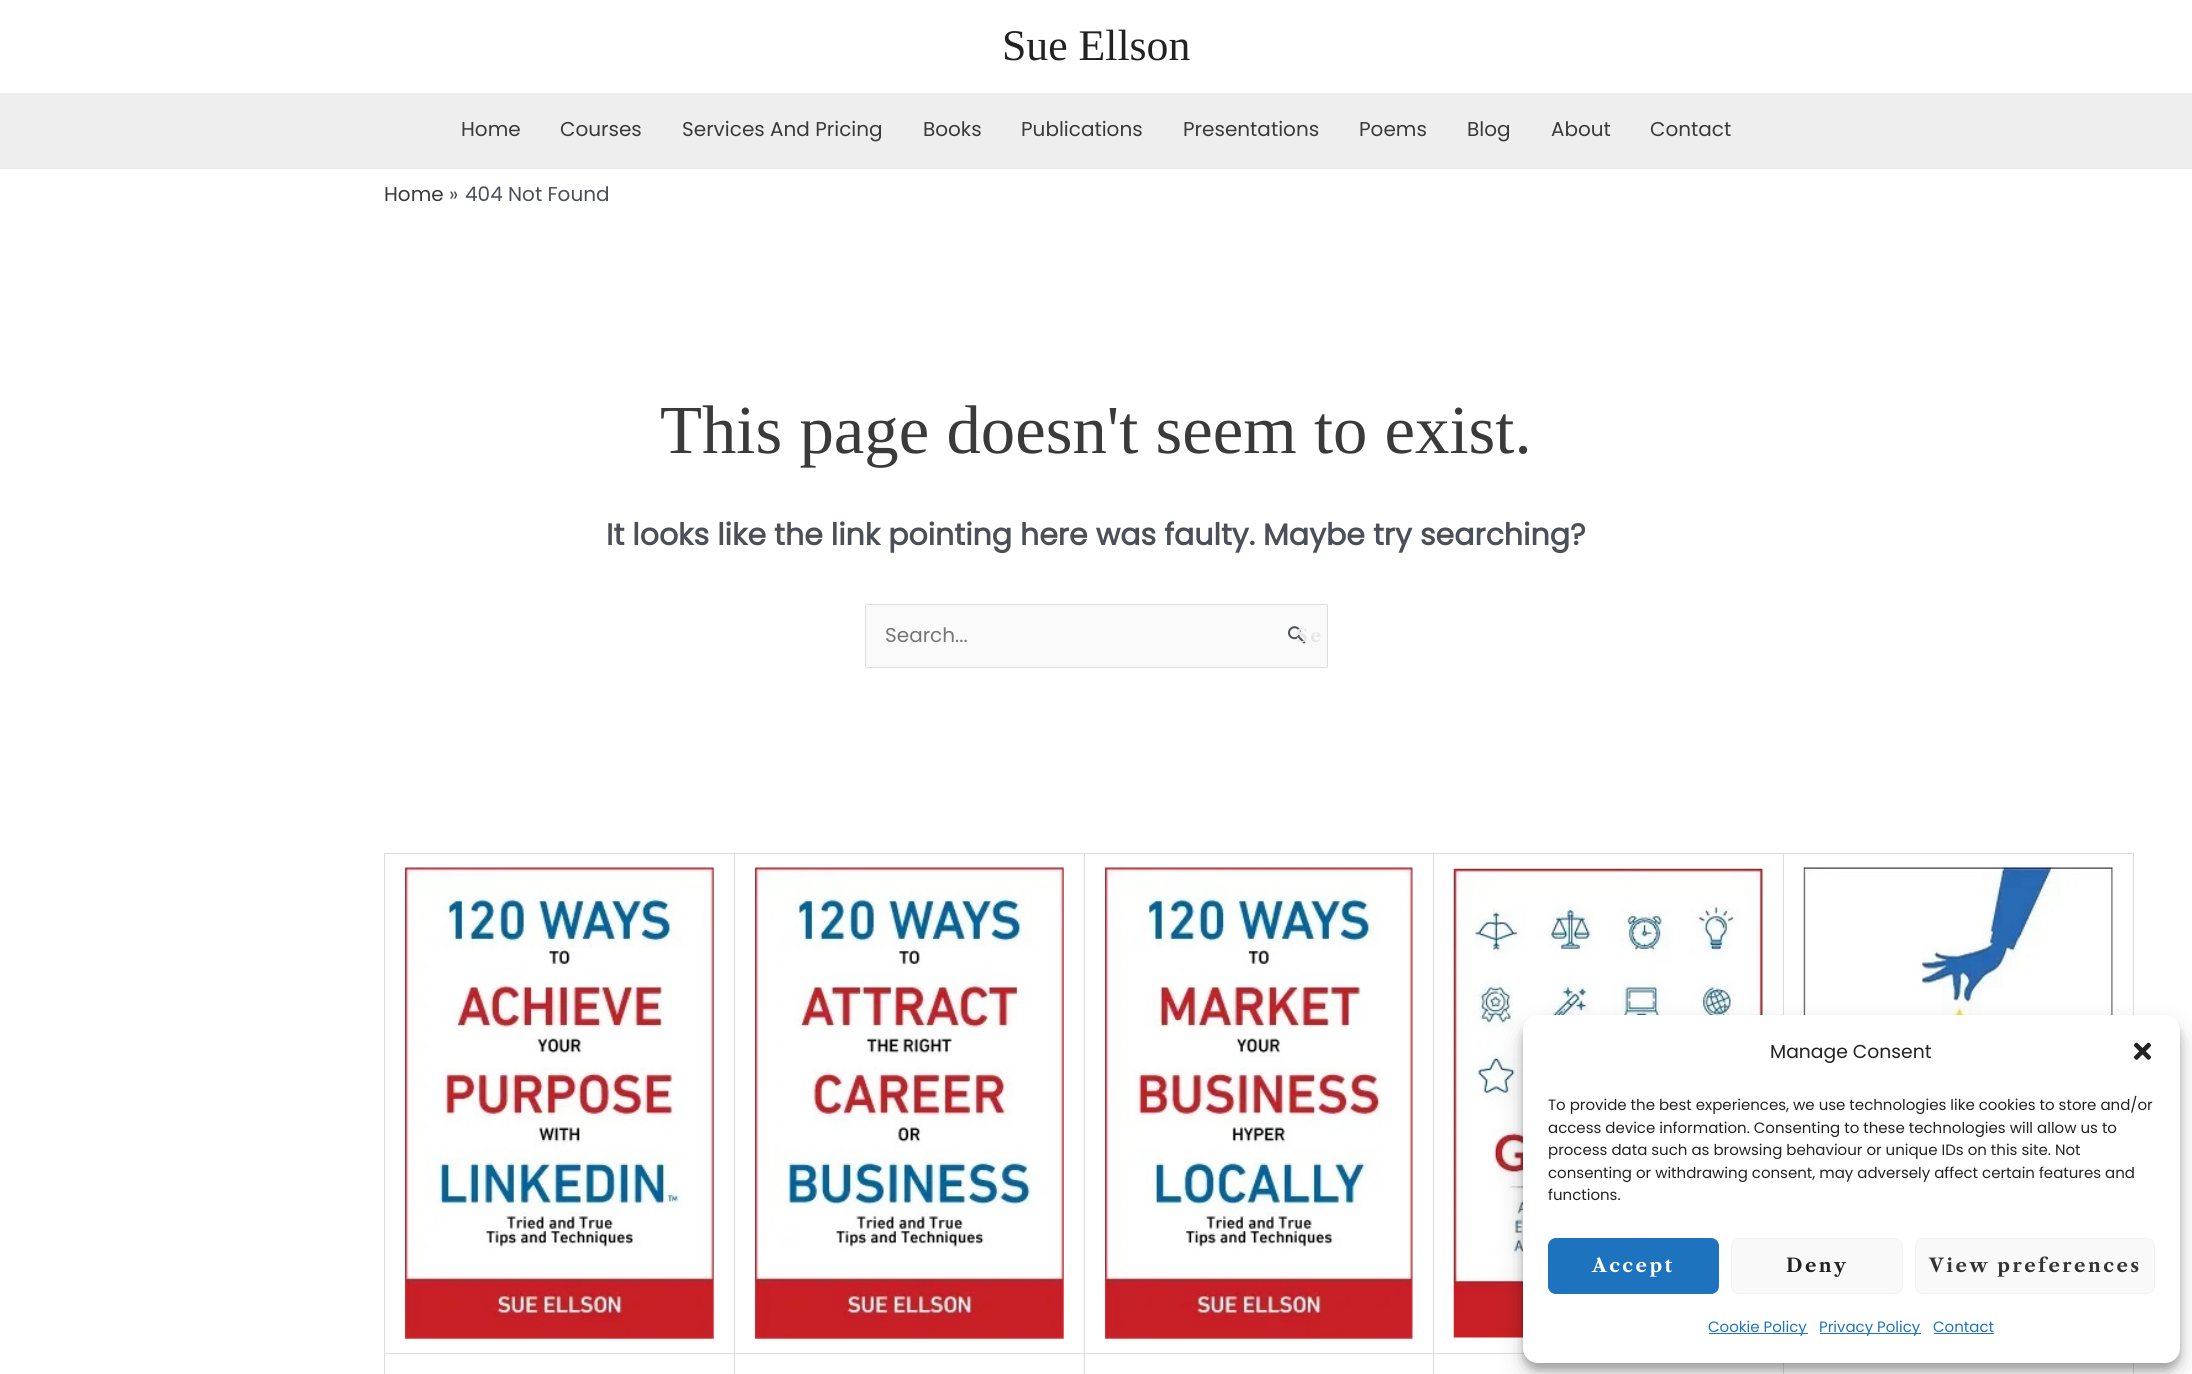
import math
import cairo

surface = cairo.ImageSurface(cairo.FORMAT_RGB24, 2192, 1374)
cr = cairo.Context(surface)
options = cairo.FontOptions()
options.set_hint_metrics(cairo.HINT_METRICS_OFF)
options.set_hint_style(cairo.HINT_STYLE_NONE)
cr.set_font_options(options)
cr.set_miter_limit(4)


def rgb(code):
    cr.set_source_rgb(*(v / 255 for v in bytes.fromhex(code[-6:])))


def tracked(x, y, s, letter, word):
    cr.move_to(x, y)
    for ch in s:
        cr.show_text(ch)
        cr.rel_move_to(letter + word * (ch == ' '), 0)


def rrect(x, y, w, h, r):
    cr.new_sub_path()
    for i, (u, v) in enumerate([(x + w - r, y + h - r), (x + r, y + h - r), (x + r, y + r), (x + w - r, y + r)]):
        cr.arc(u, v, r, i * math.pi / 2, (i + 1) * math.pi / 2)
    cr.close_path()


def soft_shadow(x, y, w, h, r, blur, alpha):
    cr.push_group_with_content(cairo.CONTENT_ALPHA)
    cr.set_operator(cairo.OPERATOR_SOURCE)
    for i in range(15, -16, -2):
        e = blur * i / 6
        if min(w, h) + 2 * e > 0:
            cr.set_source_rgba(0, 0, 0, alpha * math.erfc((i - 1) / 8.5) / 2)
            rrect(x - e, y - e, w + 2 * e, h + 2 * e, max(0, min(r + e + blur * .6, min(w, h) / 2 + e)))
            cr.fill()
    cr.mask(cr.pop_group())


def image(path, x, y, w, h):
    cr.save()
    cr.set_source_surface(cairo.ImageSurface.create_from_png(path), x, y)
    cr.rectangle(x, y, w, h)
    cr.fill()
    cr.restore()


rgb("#ffffff")
cr.paint()
rgb("#eeeeee")
cr.rectangle(0, 93, 2192, 75)
cr.fill()
rgb("#eaeaea")
cr.rectangle(0, 168, 2192, 1)
cr.fill()
rgb("#fafafa")
rrect(865.5, 604.5, 462, 63, 2)
cr.fill_preserve()
rgb("#dddddd")
cr.set_line_width(1)
cr.stroke()
image("img/1.png", 1288, 626, 18, 18)
for x, y, w, h, color in [
    (384, 853, 1750, 1, "#dddddd"),
    (384, 853, 1, 521, "#dddddd"),
    (734, 854, 1, 520, "#dddddd"),
    (385, 1353, 350, 1, "#dddddd"),
]:
    rgb(color)
    cr.rectangle(x, y, w, h)
    cr.fill()
image("img/2.png", 405, 867, 309, 472)
cr.rectangle(1084, 854, 1, 520)
cr.fill()
cr.rectangle(735, 1353, 350, 1)
cr.fill()
image("img/3.png", 755, 867, 309, 472)
cr.rectangle(1433, 854, 1, 520)
cr.fill()
cr.rectangle(1085, 1353, 440, 1)
cr.fill()
image("img/4.png", 1105, 867, 308, 472)
cr.rectangle(1783, 854, 1, 161)
cr.fill()
image("img/5.png", 1453, 868, 310, 470)
cr.rectangle(2133, 854, 1, 161)
cr.fill()
image("img/6.png", 1803, 867, 310, 148)
cr.rectangle(1783, 1363, 1, 11)
cr.fill()
cr.rectangle(2133, 1363, 1, 11)
cr.fill()
rgb("#000000")
soft_shadow(1523, 1023, 657, 347, 15, 4, 0.23)
soft_shadow(1523, 1028, 657, 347, 15, 12.5, 0.19)
rgb("#ffffff")
rrect(1523, 1015, 657, 348, 15)
cr.fill()
image("img/7.png", 2133, 1042, 19, 18)
rgb("#1e73be")
rrect(1548.5, 1238.5, 170, 55, 7.5)
cr.fill_preserve()
cr.stroke()
rgb("#f9f9f9")
rrect(1731.5, 1238.5, 171, 55, 7.5)
cr.fill_preserve()
rgb("#f2f2f2")
cr.stroke()
rgb("#f9f9f9")
rrect(1915.5, 1238.5, 239, 55, 7.5)
cr.fill_preserve()
rgb("#f2f2f2")
cr.stroke()
for x, y, w, h, color in [
    (1709, 1333, 99, 1, "#1e73be"),
    (1820, 1333, 101, 1, "#1e73be"),
    (1934, 1333, 60, 1, "#1e73be"),
]:
    rgb(color)
    cr.rectangle(x, y, w, h)
    cr.fill()
cr.select_font_face("Liberation Serif")
cr.set_font_size(43.75)
rgb("#222222")
cr.move_to(1002, 60)
cr.show_text("Sue Ellson")
cr.select_font_face("Poppins")
cr.set_font_size(20)
rgb("#3a3a3a")
for x, y, s in [
    (461, 136, "Home"),
    (560, 136, "Courses"),
    (682, 136, "Services And Pricing"),
    (923, 136, "Books"),
    (1021, 136, "Publications"),
    (1183, 136, "Presentations"),
    (1359, 136, "Poems"),
    (1467, 136, "Blog"),
    (1551, 136, "About"),
    (1650, 136, "Contact"),
    (384, 201, "Home"),
]:
    cr.move_to(x, y)
    cr.show_text(s)
rgb("#4b4f58")
cr.move_to(449, 201)
cr.show_text("»")
cr.move_to(465, 201)
cr.show_text("404 Not Found")
cr.select_font_face("Liberation Serif")
cr.set_font_size(68.75)
rgb("#3a3a3a")
cr.move_to(660, 453)
cr.show_text("This page doesn't seem to exist.")
cr.select_font_face("Poppins", cairo.FONT_SLANT_NORMAL, cairo.FONT_WEIGHT_BOLD)
cr.set_font_size(30)
rgb("#4b4f58")
cr.move_to(606, 545)
cr.show_text("It looks like the link pointing here was faulty. Maybe try searching?")
cr.select_font_face("Poppins")
cr.set_font_size(20)
rgb("#757575")
cr.move_to(885, 642)
cr.show_text("Search...")
cr.select_font_face("Libre Caslon Text", cairo.FONT_SLANT_NORMAL, cairo.FONT_WEIGHT_BOLD)
cr.set_font_size(18)
rgb("#e7e7e8")
tracked(1296, 642, "Se", 2.5, 0)
cr.select_font_face("Poppins")
cr.set_font_size(18.75)
rgb("#222222")
cr.move_to(1770, 1058)
cr.show_text("Manage Consent")
cr.set_font_size(15)
for x, y, s in [
    (1548, 1110, "To provide the best experiences, we use technologies like cookies to store and/or"),
    (1548, 1133, "access device information. Consenting to these technologies will allow us to"),
    (1548, 1155, "process data such as browsing behaviour or unique IDs on this site. Not"),
    (1548, 1178, "consenting or withdrawing consent, may adversely affect certain features and"),
    (1548, 1200, "functions."),
]:
    cr.move_to(x, y)
    cr.show_text(s)
cr.select_font_face("Libre Caslon Text", cairo.FONT_SLANT_NORMAL, cairo.FONT_WEIGHT_BOLD)
cr.set_font_size(18.75)
rgb("#ffffff")
tracked(1592, 1272, "Accept", 2.5, 0)
rgb("#222222")
tracked(1786, 1272, "Deny", 2.5, 0)
rgb("#333333")
tracked(1929, 1272, "View preferences", 2.5, 0)
cr.select_font_face("Poppins")
cr.set_font_size(15)
rgb("#1e73be")
for x, y, s in [
    (1708, 1332, "Cookie Policy"),
    (1819, 1332, "Privacy Policy"),
    (1933, 1332, "Contact"),
]:
    cr.move_to(x, y)
    cr.show_text(s)
surface.write_to_png("page.png")
